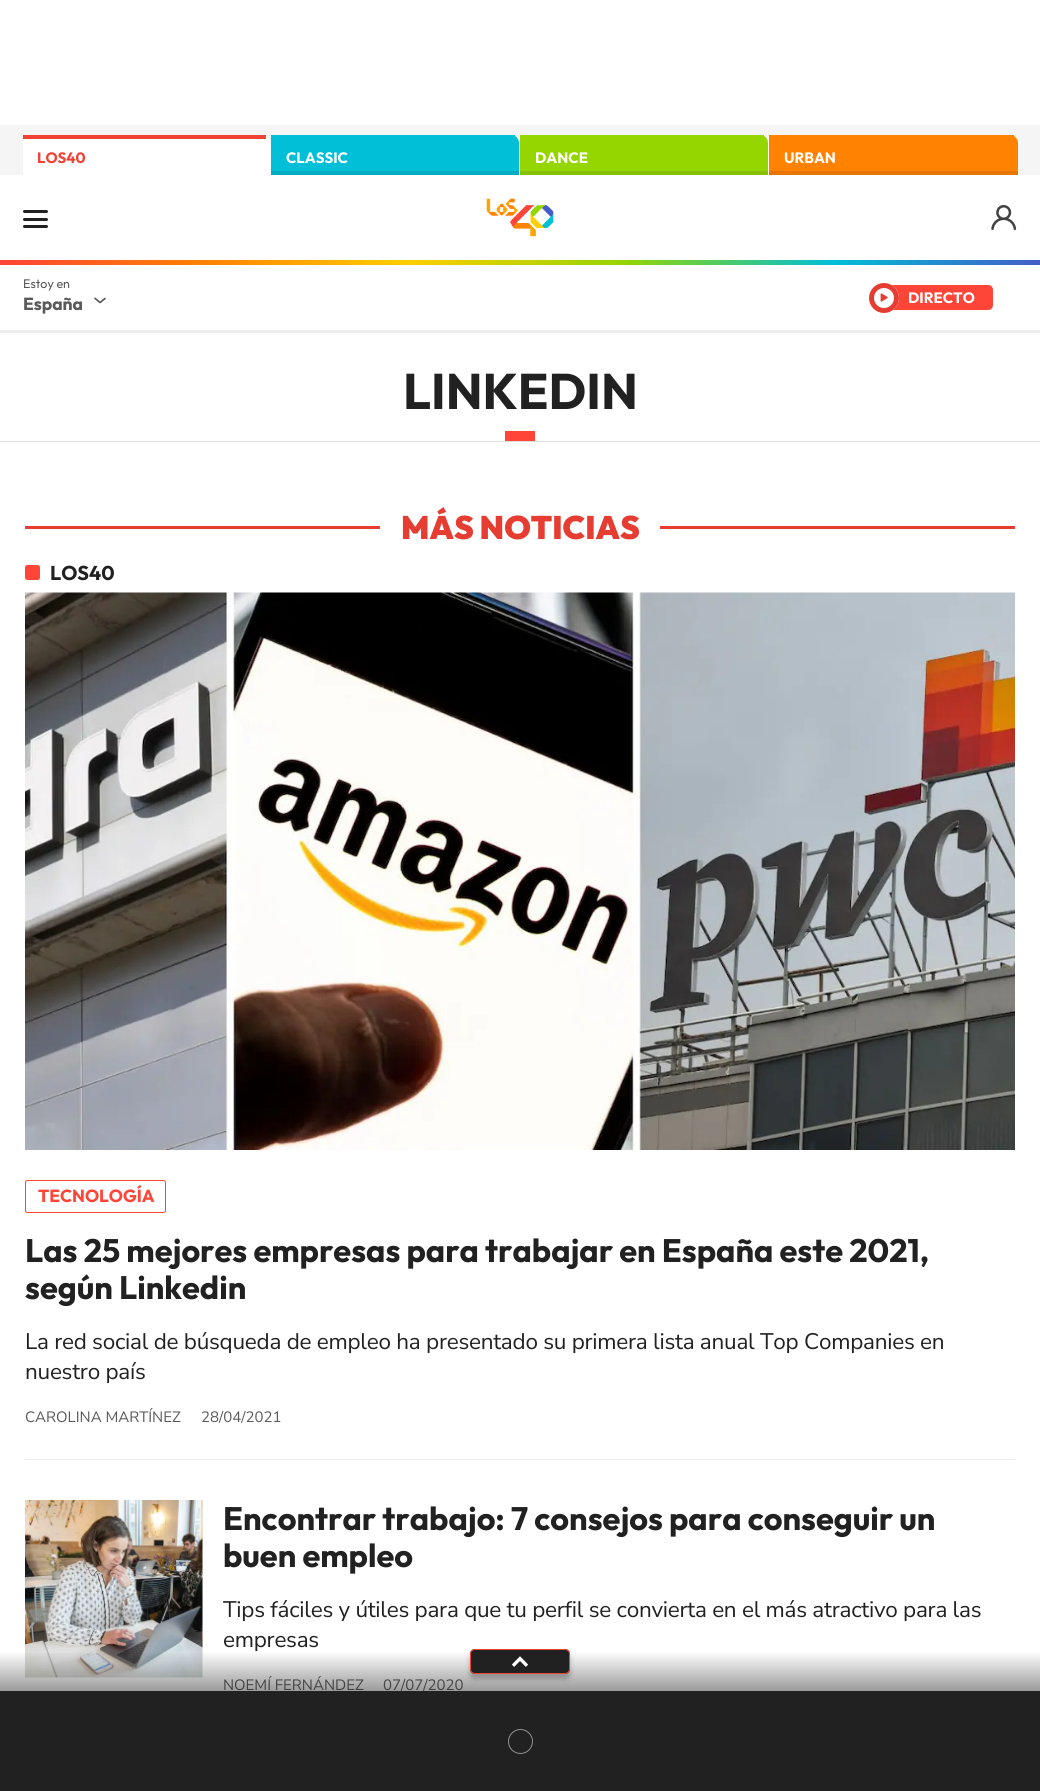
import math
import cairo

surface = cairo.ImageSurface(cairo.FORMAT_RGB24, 1040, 1791)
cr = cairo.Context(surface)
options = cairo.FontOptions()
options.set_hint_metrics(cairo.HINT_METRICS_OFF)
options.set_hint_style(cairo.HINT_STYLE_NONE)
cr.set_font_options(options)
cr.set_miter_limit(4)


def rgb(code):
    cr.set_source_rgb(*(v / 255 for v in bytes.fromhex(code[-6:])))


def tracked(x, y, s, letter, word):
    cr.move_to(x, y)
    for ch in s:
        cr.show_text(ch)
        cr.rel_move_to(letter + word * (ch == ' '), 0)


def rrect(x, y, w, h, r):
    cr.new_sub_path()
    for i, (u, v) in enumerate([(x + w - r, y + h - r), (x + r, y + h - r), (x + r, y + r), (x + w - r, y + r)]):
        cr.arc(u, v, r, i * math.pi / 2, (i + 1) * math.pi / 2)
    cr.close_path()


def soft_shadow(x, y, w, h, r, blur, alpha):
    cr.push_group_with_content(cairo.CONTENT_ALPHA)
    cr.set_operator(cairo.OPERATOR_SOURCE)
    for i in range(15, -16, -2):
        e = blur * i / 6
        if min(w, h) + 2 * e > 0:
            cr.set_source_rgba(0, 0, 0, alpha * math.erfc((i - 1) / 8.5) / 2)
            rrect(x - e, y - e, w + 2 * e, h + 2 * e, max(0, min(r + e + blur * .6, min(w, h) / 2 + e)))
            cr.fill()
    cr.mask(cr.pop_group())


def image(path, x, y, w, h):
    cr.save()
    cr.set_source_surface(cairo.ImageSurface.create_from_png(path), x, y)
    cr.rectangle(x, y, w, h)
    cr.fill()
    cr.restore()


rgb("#ffffff")
cr.paint()
rgb("#f5f5f5")
cr.rectangle(0, 125, 1040, 50)
cr.fill()
rgb("#ffffff")
cr.new_path()
cr.move_to(23, 135)
cr.line_to(262, 135)
cr.curve_to(266.5, 135, 270, 138.5, 270, 143)
cr.line_to(270, 175)
cr.line_to(23, 175)
cr.close_path()
cr.fill()
rgb("#f24135")
cr.rectangle(23, 135, 243, 4)
cr.fill()
rgb("#00bfd6")
cr.new_path()
cr.move_to(271, 135)
cr.line_to(511, 135)
cr.curve_to(515.5, 135, 519, 138.5, 519, 143)
cr.line_to(519, 175)
cr.line_to(271, 175)
cr.close_path()
cr.fill()
cr.rectangle(511, 135, 4, 2)
cr.fill()
rgb("#00acc1")
cr.rectangle(271, 171, 248, 4)
cr.fill()
rgb("#95d500")
cr.new_path()
cr.move_to(520, 135)
cr.line_to(760, 135)
cr.curve_to(764.5, 135, 768, 138.5, 768, 143)
cr.line_to(768, 175)
cr.line_to(520, 175)
cr.close_path()
cr.fill()
cr.rectangle(760, 135, 4, 2)
cr.fill()
rgb("#86c000")
cr.rectangle(520, 171, 248, 4)
cr.fill()
rgb("#ff8300")
cr.new_path()
cr.move_to(769, 135)
cr.line_to(1010, 135)
cr.curve_to(1014.5, 135, 1018, 138.5, 1018, 143)
cr.line_to(1018, 175)
cr.line_to(769, 175)
cr.close_path()
cr.fill()
cr.rectangle(1010, 135, 4, 2)
cr.fill()
rgb("#e67600")
cr.rectangle(769, 171, 249, 4)
cr.fill()
gradient = cairo.LinearGradient(1040, 262, 0, 263)
gradient.add_color_stop_rgba(0, 0.271, 0.361, 0.78, 1)
gradient.add_color_stop_rgba(0.2, 0, 0.749, 0.839, 1)
gradient.add_color_stop_rgba(0.4, 0.584, 0.835, 0, 1)
gradient.add_color_stop_rgba(0.61, 0.996, 0.808, 0, 1)
gradient.add_color_stop_rgba(0.8, 1, 0.514, 0, 1)
gradient.add_color_stop_rgba(1, 1, 0.267, 0.216, 1)
cr.set_source(gradient)
cr.rectangle(0, 260, 1040, 5)
cr.fill()
rgb("#212121")
rrect(23, 218, 25, 3, 1.5)
cr.fill()
rrect(23, 210, 25, 3, 1.5)
cr.fill()
rrect(23, 225, 25, 3, 1.5)
cr.fill()
image("img/1.png", 486, 198, 68, 39)
image("img/2.png", 991, 205, 26, 25)
image("img/3.png", 94, 297, 12, 7)
rgb("#eeeeee")
cr.rectangle(0, 330, 1040, 3)
cr.fill()
rgb("#ff4438")
cr.new_path()
cr.move_to(884, 285)
cr.line_to(988, 285)
cr.curve_to(991, 285, 993, 287, 993, 290)
cr.line_to(993, 305)
cr.curve_to(993, 308, 991, 310, 988, 310)
cr.line_to(884, 310)
cr.close_path()
cr.fill()
rgb("#ffffff")
cr.arc(884, 298, 15, 0, 2 * math.pi)
cr.fill()
image("img/4.png", 880, 293, 8, 9)
cr.arc(884, 298, 12.5, 0, 2 * math.pi)
rgb("#e63d32")
cr.set_line_width(5)
cr.stroke()
for x, y, w, h, color in [
    (0, 441, 1040, 1, "#e0e0e0"),
    (505, 431, 30, 10, "#ff4438"),
    (25, 526, 990, 3, "#e63d32"),
    (380, 526, 280, 3, "#ffffff"),
    (25, 1459, 990, 1, "#eeeeee"),
]:
    rgb(color)
    cr.rectangle(x, y, w, h)
    cr.fill()
rgb("#ff4438")
rrect(25, 565, 15, 15, 2.5)
cr.fill()
image("img/5.png", 25, 592, 990, 558)
rrect(25.5, 1180.5, 140, 32, 2)
cr.set_line_width(1)
cr.stroke()
image("img/6.png", 25, 1500, 178, 178)
rgb("#212121")
cr.rectangle(0, 1691, 1040, 100)
cr.fill()
cr.arc(520.5, 1741.5, 12, 0, 2 * math.pi)
rgb("#909090")
cr.stroke()
cr.select_font_face("Outfit", cairo.FONT_SLANT_NORMAL, cairo.FONT_WEIGHT_BOLD)
cr.set_font_size(15)
rgb("#f24135")
cr.move_to(37, 163)
cr.show_text("LOS40")
rgb("#ffffff")
for x, y, s in [
    (286, 163, "CLASSIC"),
    (535, 163, "DANCE"),
    (784, 163, "URBAN"),
]:
    cr.move_to(x, y)
    cr.show_text(s)
cr.select_font_face("Outfit")
cr.set_font_size(12.5)
rgb("#595959")
cr.move_to(23, 288)
cr.show_text("Estoy en")
cr.select_font_face("Outfit", cairo.FONT_SLANT_NORMAL, cairo.FONT_WEIGHT_BOLD)
cr.set_font_size(17.5)
cr.move_to(23, 310)
cr.show_text("España")
cr.set_font_size(15)
rgb("#ffffff")
cr.move_to(908, 303)
cr.show_text("DIRECTO")
cr.set_font_size(50)
rgb("#212121")
cr.move_to(403, 409)
cr.show_text("LINKEDIN")
cr.select_font_face("Outfit Black")
cr.set_font_size(32.5)
rgb("#e63d32")
cr.move_to(401, 539)
cr.show_text("MÁS NOTICIAS")
cr.select_font_face("Outfit", cairo.FONT_SLANT_NORMAL, cairo.FONT_WEIGHT_BOLD)
cr.set_font_size(20)
rgb("#212121")
cr.move_to(50, 580)
cr.show_text("LOS40")
cr.set_font_size(17.5)
rgb("#ff4438")
cr.move_to(38, 1202)
cr.show_text("TECNOLOGÍA")
cr.set_font_size(32.5)
rgb("#212121")
cr.move_to(25, 1262)
cr.show_text("Las 25 mejores empresas para trabajar en España este 2021,")
cr.move_to(25, 1299)
cr.show_text("según Linkedin")
cr.select_font_face("Nunito Sans")
cr.set_font_size(22.5)
tracked(25, 1349, "La red social de búsqueda de empleo ha presentado su primera lista anual Top Companies en", -0.25, 0)
tracked(25, 1379, "nuestro país", -0.25, 0)
cr.set_font_size(15)
rgb("#595959")
cr.move_to(25, 1422)
cr.show_text("CAROLINA MARTÍNEZ")
cr.move_to(201, 1422)
cr.show_text("28/04/2021")
cr.select_font_face("Outfit", cairo.FONT_SLANT_NORMAL, cairo.FONT_WEIGHT_BOLD)
cr.set_font_size(32.5)
rgb("#212121")
cr.move_to(223, 1530)
cr.show_text("Encontrar trabajo: 7 consejos para conseguir un")
cr.move_to(223, 1567)
cr.show_text("buen empleo")
cr.select_font_face("Nunito Sans")
cr.set_font_size(22.5)
tracked(223, 1617, "Tips fáciles y útiles para que tu perfil se convierta en el más atractivo para las", -0.25, 0)
tracked(223, 1647, "empresas", -0.25, 0)
cr.set_font_size(15)
rgb("#595959")
cr.move_to(223, 1690)
cr.show_text("NOEMÍ FERNÁNDEZ")
cr.move_to(383, 1690)
cr.show_text("07/07/2020")
gradient = cairo.LinearGradient(520, 1651, 520, 1691)
gradient.add_color_stop_rgba(0, 0.129, 0.129, 0.129, 0)
gradient.add_color_stop_rgba(1, 0.129, 0.129, 0.129, 0.45)
cr.set_source(gradient)
cr.rectangle(0, 1653, 1040, 38)
cr.fill()
rgb("#000000")
soft_shadow(470, 1654, 100, 25, 5, 2.5, 0.25)
rgb("#212121")
rrect(470, 1649, 100, 25, 5)
cr.fill()
image("img/7.png", 511, 1656, 18, 11)
rrect(470.5, 1649.5, 99, 24, 4.5)
rgb("#e94734")
cr.stroke()
surface.write_to_png("page.png")
